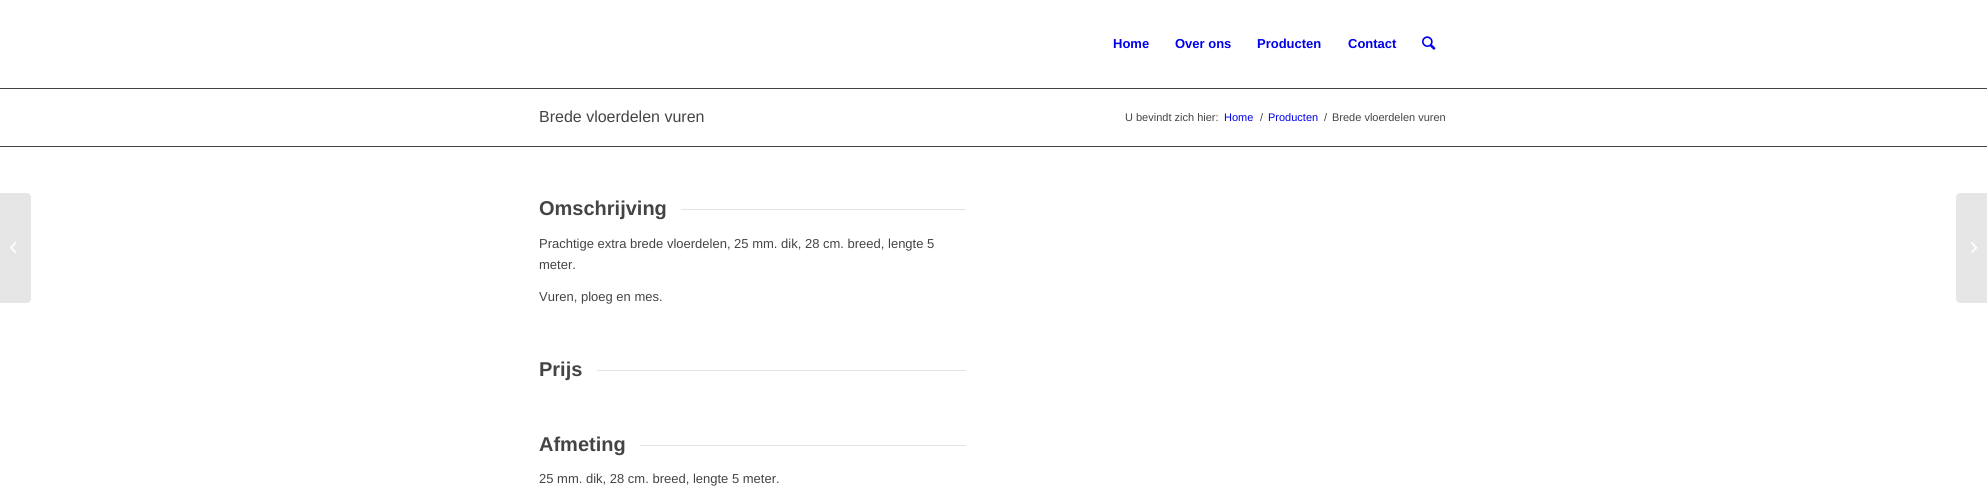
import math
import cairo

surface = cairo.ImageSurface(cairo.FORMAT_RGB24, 1987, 496)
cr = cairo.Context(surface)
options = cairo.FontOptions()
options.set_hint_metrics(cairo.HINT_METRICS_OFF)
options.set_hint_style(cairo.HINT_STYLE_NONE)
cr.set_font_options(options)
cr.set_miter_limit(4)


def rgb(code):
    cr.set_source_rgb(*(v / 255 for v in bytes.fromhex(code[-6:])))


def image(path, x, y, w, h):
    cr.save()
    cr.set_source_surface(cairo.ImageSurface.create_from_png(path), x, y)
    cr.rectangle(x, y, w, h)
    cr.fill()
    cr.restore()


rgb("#ffffff")
cr.paint()
rgb("#444444")
cr.rectangle(0, 88, 1987, 1)
cr.fill()
image("img/1.png", 1422, 36, 14, 14)
rgb("#e6e6e6")
cr.new_path()
cr.move_to(0, 193)
cr.line_to(27, 193)
cr.curve_to(29, 193, 31, 195, 31, 197)
cr.line_to(31, 299)
cr.curve_to(31, 301, 29, 303, 27, 303)
cr.line_to(0, 303)
cr.close_path()
cr.fill()
image("img/2.png", 10, 242, 7, 11)
for x, y, w, h, color in [
    (0, 146, 1987, 1, "#444444"),
    (681, 209, 285, 1, "#e3e3e3"),
    (597, 370, 369, 1, "#e3e3e3"),
    (640, 445, 326, 1, "#e3e3e3"),
]:
    rgb(color)
    cr.rectangle(x, y, w, h)
    cr.fill()
rgb("#e6e6e6")
cr.new_path()
cr.move_to(1960, 193)
cr.line_to(1987, 193)
cr.line_to(1987, 303)
cr.line_to(1960, 303)
cr.curve_to(1958, 303, 1956, 301, 1956, 299)
cr.line_to(1956, 197)
cr.curve_to(1956, 195, 1958, 193, 1960, 193)
cr.close_path()
cr.fill()
image("img/3.png", 1971, 242, 7, 11)
cr.select_font_face("Liberation Sans", cairo.FONT_SLANT_NORMAL, cairo.FONT_WEIGHT_BOLD)
cr.set_font_size(13)
rgb("#0000ee")
for x, y, s in [
    (1113, 48, "Home"),
    (1175, 48, "Over ons"),
    (1257, 48, "Producten"),
    (1348, 48, "Contact"),
]:
    cr.move_to(x, y)
    cr.show_text(s)
cr.select_font_face("Liberation Sans")
cr.set_font_size(16)
rgb("#444444")
cr.move_to(539, 122)
cr.show_text("Brede vloerdelen vuren")
cr.set_font_size(11)
cr.move_to(1125, 121)
cr.show_text("U bevindt zich hier:")
rgb("#0000ee")
cr.move_to(1224, 121)
cr.show_text("Home")
rgb("#444444")
cr.move_to(1260, 121)
cr.show_text("/")
rgb("#0000ee")
cr.move_to(1268, 121)
cr.show_text("Producten")
rgb("#444444")
cr.move_to(1324, 121)
cr.show_text("/")
cr.move_to(1332, 121)
cr.show_text("Brede vloerdelen vuren")
cr.select_font_face("Liberation Sans", cairo.FONT_SLANT_NORMAL, cairo.FONT_WEIGHT_BOLD)
cr.set_font_size(20)
cr.move_to(539, 215)
cr.show_text("Omschrijving")
cr.select_font_face("Liberation Sans")
cr.set_font_size(13)
for x, y, s in [
    (539, 248, "Prachtige extra brede vloerdelen, 25 mm. dik, 28 cm. breed, lengte 5"),
    (539, 269, "meter."),
    (539, 301, "Vuren, ploeg en mes."),
]:
    cr.move_to(x, y)
    cr.show_text(s)
cr.select_font_face("Liberation Sans", cairo.FONT_SLANT_NORMAL, cairo.FONT_WEIGHT_BOLD)
cr.set_font_size(20)
cr.move_to(539, 376)
cr.show_text("Prijs")
cr.move_to(539, 451)
cr.show_text("Afmeting")
cr.select_font_face("Liberation Sans")
cr.set_font_size(13)
cr.move_to(539, 483)
cr.show_text("25 mm. dik, 28 cm. breed, lengte 5 meter.")
surface.write_to_png("page.png")
